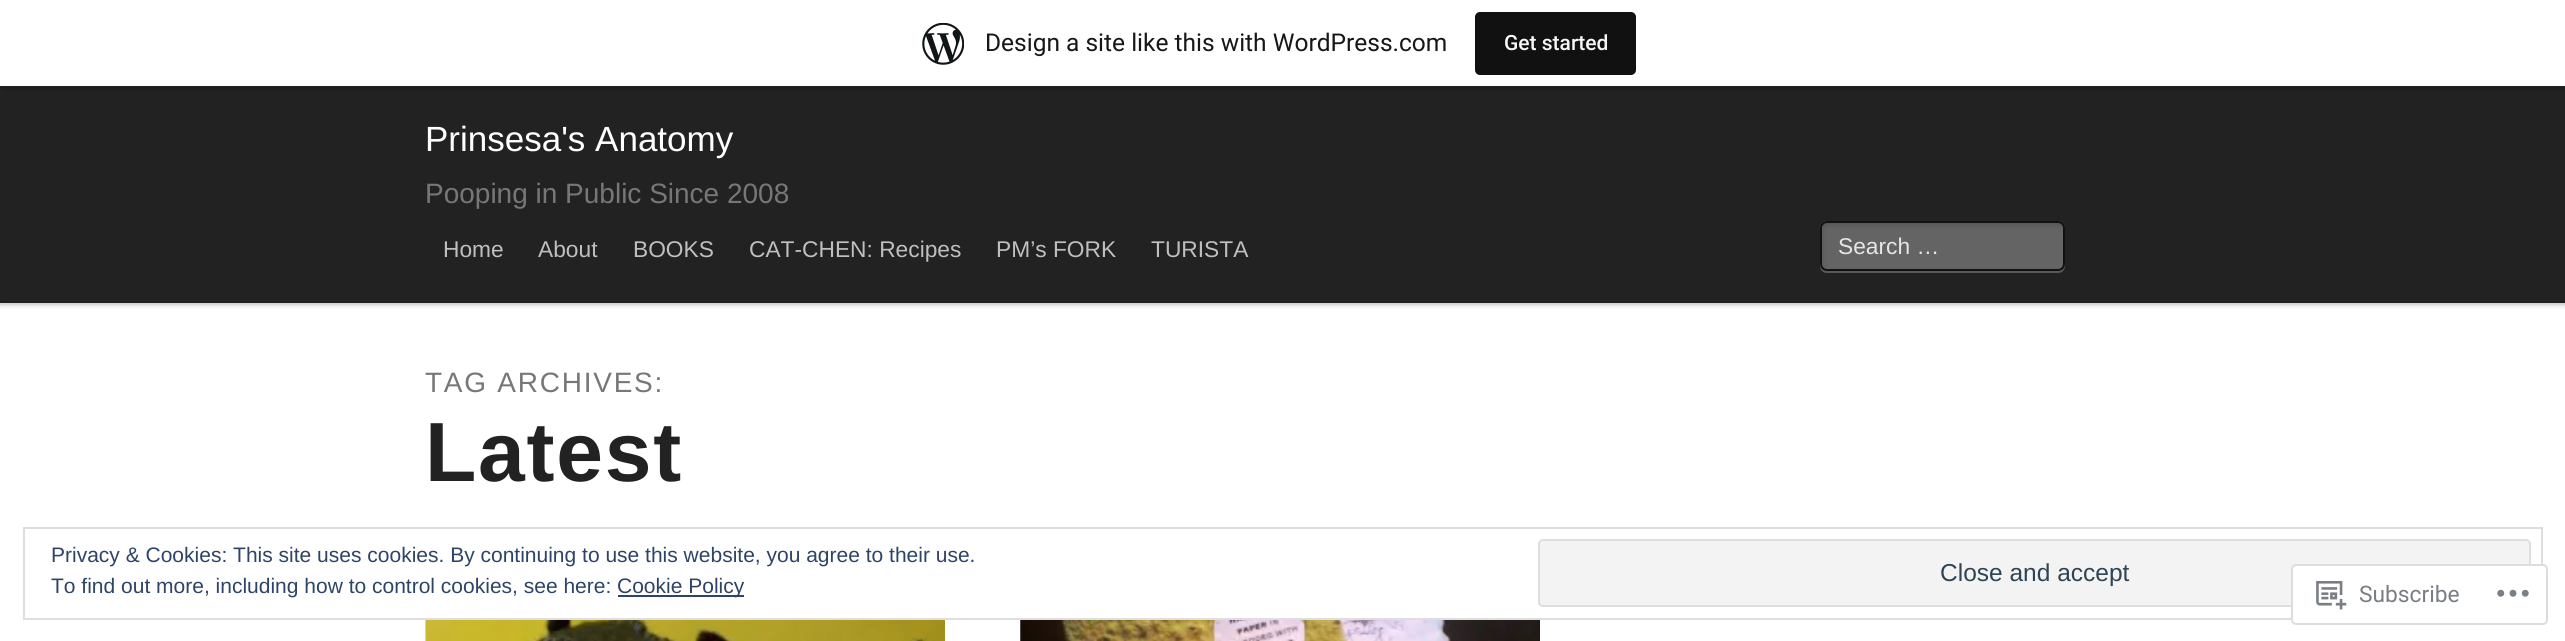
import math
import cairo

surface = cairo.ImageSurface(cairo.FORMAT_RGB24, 2565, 641)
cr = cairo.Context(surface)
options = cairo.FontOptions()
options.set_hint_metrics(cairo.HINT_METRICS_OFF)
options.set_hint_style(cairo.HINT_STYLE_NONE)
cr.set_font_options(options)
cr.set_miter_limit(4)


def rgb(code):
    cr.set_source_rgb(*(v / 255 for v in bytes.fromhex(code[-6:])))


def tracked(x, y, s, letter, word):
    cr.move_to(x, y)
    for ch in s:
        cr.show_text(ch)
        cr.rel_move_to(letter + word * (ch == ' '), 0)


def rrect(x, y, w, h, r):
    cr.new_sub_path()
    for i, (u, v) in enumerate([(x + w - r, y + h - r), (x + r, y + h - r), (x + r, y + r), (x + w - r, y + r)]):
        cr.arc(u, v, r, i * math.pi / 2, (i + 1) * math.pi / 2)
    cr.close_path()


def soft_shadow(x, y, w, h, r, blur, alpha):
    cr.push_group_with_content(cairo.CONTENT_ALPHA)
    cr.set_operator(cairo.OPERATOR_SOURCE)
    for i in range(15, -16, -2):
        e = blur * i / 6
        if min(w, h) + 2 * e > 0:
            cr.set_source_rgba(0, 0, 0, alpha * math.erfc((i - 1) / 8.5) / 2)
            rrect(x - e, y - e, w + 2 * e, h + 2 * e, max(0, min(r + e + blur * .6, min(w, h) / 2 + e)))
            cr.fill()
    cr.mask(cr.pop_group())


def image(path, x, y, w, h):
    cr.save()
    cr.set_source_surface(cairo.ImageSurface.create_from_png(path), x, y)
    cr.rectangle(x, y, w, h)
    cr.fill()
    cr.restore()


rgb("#ffffff")
cr.paint()
rgb("#000000")
soft_shadow(0, 88, 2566, 217, 0, 2.5, 0.25)
rgb("#222222")
cr.rectangle(0, 86, 2565, 215)
cr.fill()
rgb("#000000")
soft_shadow(0, 2, 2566, 86, 0, 2, 0.05)
rgb("#1f1f1f")
cr.new_path()
cr.move_to(2, 86)
cr.line_to(2, 91)
cr.line_to(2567, 91)
cr.line_to(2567, 5)
cr.line_to(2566, 5)
cr.line_to(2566, 86)
cr.close_path()
cr.fill()
rgb("#ffffff")
cr.rectangle(0, 0, 2565, 86)
cr.fill()
image("img/1.png", 922, 23, 42, 42)
rgb("#111111")
rrect(1475, 12, 161, 63, 5)
cr.fill()
rgb("#1f1f1f")
cr.rectangle(0, 301, 2565, 2)
cr.fill()
rgb("#595959")
cr.new_path()
cr.move_to(1820, 264)
cr.line_to(1820, 266)
cr.curve_to(1820, 270, 1823, 273, 1827, 273)
cr.line_to(2058, 273)
cr.curve_to(2062, 273, 2065, 270, 2065, 266)
cr.line_to(2065, 264)
cr.curve_to(2065, 268, 2062, 271, 2058, 271)
cr.line_to(1827, 271)
cr.curve_to(1823, 271, 1820, 268, 1820, 264)
cr.close_path()
cr.fill()
cr.set_source_rgba(1, 1, 1, 0.3)
rrect(1820, 221, 245, 50, 7)
cr.fill()
image("img/2.png", 1821, 222, 243, 48)
rrect(1821, 222, 243, 48, 6)
rgb("#111111")
cr.stroke()
image("img/3.png", 425, 620, 520, 21)
image("img/4.png", 1020, 620, 520, 21)
cr.rectangle(24, 528, 2518, 91)
rgb("#dedede")
cr.stroke()
rgb("#2e4467")
cr.rectangle(618, 595, 126, 2)
cr.fill()
rgb("#f3f3f3")
rrect(1539, 540, 991, 66, 4)
cr.fill_preserve()
rgb("#dedede")
cr.stroke()
cr.set_source_rgba(1, 1, 1, 0.98)
rrect(2291, 564, 257, 61, 5)
cr.fill()
rrect(2292, 565, 255, 59, 4)
cr.set_source_rgba(0.863, 0.863, 0.871, 0.98)
cr.stroke()
image("img/5.png", 2316, 581, 31, 29)
image("img/6.png", 2497, 589, 32, 8)
cr.select_font_face("Roboto")
cr.set_font_size(24.5)
rgb("#171717")
cr.move_to(985, 51)
cr.show_text("Design a site like this with WordPress.com")
cr.select_font_face("Roboto Medium")
cr.set_font_size(21)
rgb("#f6f7f7")
cr.move_to(1504, 50)
cr.show_text("Get started")
cr.select_font_face("Liberation Sans")
cr.set_font_size(35)
rgb("#ffffff")
cr.move_to(425, 151)
cr.show_text("Prinsesa's Anatomy")
cr.set_font_size(28)
rgb("#777777")
cr.move_to(425, 203)
cr.show_text("Pooping in Public Since 2008")
cr.set_font_size(22.75)
rgb("#bfbfbf")
for x, y, s in [
    (443, 257, "Home"),
    (538, 257, "About"),
    (633, 257, "BOOKS"),
    (749, 257, "CAT-CHEN: Recipes"),
    (996, 257, "PM’s FORK"),
    (1151, 257, "TURISTA"),
]:
    cr.move_to(x, y)
    cr.show_text(s)
rgb("#e6e6e6")
cr.move_to(1838, 254)
cr.show_text("Search …")
cr.set_font_size(28)
rgb("#777777")
tracked(425, 392, "TAG ARCHIVES:", 1.75, 0)
cr.select_font_face("Liberation Sans", cairo.FONT_SLANT_NORMAL, cairo.FONT_WEIGHT_BOLD)
cr.set_font_size(84)
rgb("#222222")
tracked(425, 481, "Latest", 1.75, 0)
cr.select_font_face("Liberation Sans")
cr.set_font_size(21)
rgb("#2e4467")
for x, y, s in [
    (51, 562, "Privacy & Cookies: This site uses cookies. By continuing to use this website, you agree to their use."),
    (51, 593, "To find out more, including how to control cookies, see here:"),
    (617, 593, "Cookie Policy"),
]:
    cr.move_to(x, y)
    cr.show_text(s)
cr.set_font_size(24.5)
rgb("#2e4453")
cr.move_to(1940, 581)
cr.show_text("Close and accept")
cr.select_font_face("Roboto")
cr.set_font_size(22.75)
rgb("#7a7e84")
cr.move_to(2359, 602)
cr.show_text("Subscribe")
surface.write_to_png("page.png")
